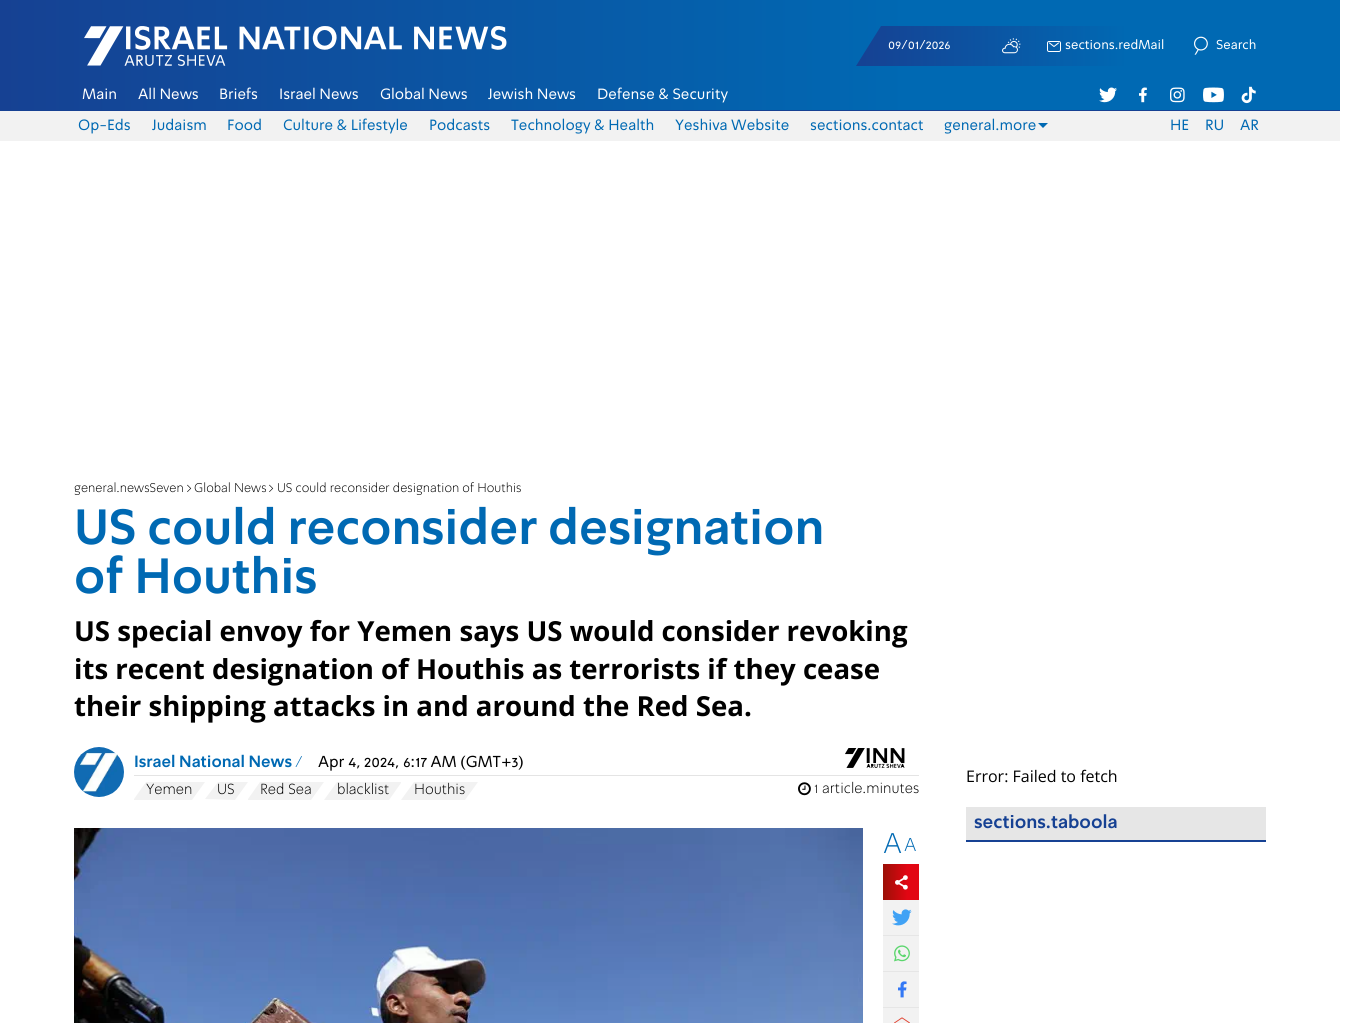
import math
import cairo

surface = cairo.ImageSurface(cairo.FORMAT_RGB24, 1355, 1023)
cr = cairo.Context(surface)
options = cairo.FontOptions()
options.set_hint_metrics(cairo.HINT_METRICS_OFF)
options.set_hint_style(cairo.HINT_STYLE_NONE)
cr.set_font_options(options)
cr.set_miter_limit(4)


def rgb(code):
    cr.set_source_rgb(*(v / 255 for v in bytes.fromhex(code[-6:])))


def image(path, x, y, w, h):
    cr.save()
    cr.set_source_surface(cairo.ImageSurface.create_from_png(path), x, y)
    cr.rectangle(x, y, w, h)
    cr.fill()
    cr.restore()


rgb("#ffffff")
cr.paint()
rgb("#f2f2f2")
cr.rectangle(0, 111, 1340, 30)
cr.fill()
gradient = cairo.LinearGradient(1340, 55, 0, 55)
gradient.add_color_stop_rgba(0.32, 0, 0.412, 0.702, 1)
gradient.add_color_stop_rgba(1, 0.086, 0.255, 0.576, 1)
cr.set_source(gradient)
cr.rectangle(0, 0, 1340, 110)
cr.fill()
rgb("#164193")
cr.rectangle(0, 110, 1340, 1)
cr.fill()
image("img/1.png", 84, 26, 423, 40)
gradient = cairo.LinearGradient(1256, 46, 856, 46)
gradient.add_color_stop_rgba(0.32, 0, 0.412, 0.702, 1)
gradient.add_color_stop_rgba(1, 0.086, 0.255, 0.576, 1)
cr.set_source(gradient)
cr.new_path()
cr.move_to(1256, 66)
cr.line_to(1256, 26)
cr.line_to(881, 26)
cr.line_to(856, 66)
cr.close_path()
cr.fill()
image("img/2.png", 1002, 38, 19, 16)
image("img/3.png", 1047, 41, 14, 11)
image("img/4.png", 1194, 36, 14, 19)
image("img/5.png", 1099, 87, 18, 16)
image("img/6.png", 1139, 87, 8, 16)
image("img/7.png", 1170, 87, 15, 16)
image("img/8.png", 1203, 87, 21, 16)
image("img/9.png", 1241, 86, 15, 18)
rgb("#0069b3")
cr.new_path()
cr.move_to(1038, 123)
cr.line_to(1048, 123)
cr.line_to(1043, 128)
cr.close_path()
cr.fill()
image("img/10.png", 74, 747, 50, 50)
image("img/11.png", 845, 748, 60, 20)
rgb("#e4e4e4")
cr.rectangle(134, 775, 785, 1)
cr.fill()
rgb("#f2f2f2")
cr.new_path()
cr.move_to(146, 782)
cr.line_to(205, 782)
cr.line_to(192, 800)
cr.line_to(134, 800)
cr.line_to(134, 799)
cr.close_path()
cr.fill()
cr.new_path()
cr.move_to(218, 782)
cr.line_to(248, 782)
cr.line_to(235, 800)
cr.line_to(205, 799)
cr.close_path()
cr.fill()
cr.new_path()
cr.move_to(260, 782)
cr.line_to(324, 782)
cr.line_to(311, 800)
cr.line_to(248, 800)
cr.line_to(248, 799)
cr.close_path()
cr.fill()
cr.new_path()
cr.move_to(337, 782)
cr.line_to(401, 782)
cr.line_to(401, 783)
cr.line_to(389, 800)
cr.line_to(324, 800)
cr.close_path()
cr.fill()
cr.new_path()
cr.move_to(414, 782)
cr.line_to(401, 800)
cr.line_to(465, 800)
cr.line_to(478, 782)
cr.close_path()
cr.fill()
image("img/12.png", 798, 782, 13, 14)
image("img/13.png", 74, 828, 789, 195)
cr.rectangle(883, 900, 36, 123)
cr.fill()
gradient = cairo.LinearGradient(919, 882, 883, 882)
gradient.add_color_stop_rgba(0.32, 0.886, 0.024, 0.075, 1)
gradient.add_color_stop_rgba(1, 0.608, 0.063, 0.024, 1)
cr.set_source(gradient)
cr.rectangle(883, 864, 36, 36)
cr.fill()
image("img/14.png", 895, 875, 13, 15)
rgb("#e6e6e6")
cr.rectangle(883, 935, 36, 1)
cr.fill()
image("img/15.png", 892, 909, 20, 17)
cr.rectangle(883, 971, 36, 1)
cr.fill()
image("img/16.png", 894, 945, 16, 17)
cr.rectangle(883, 1007, 36, 1)
cr.fill()
image("img/17.png", 898, 981, 9, 17)
image("img/18.png", 894, 1017, 16, 6)
cr.rectangle(966, 807, 300, 33)
cr.fill()
rgb("#164193")
cr.rectangle(966, 840, 300, 2)
cr.fill()
cr.select_font_face("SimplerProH")
cr.set_font_size(13)
rgb("#ffffff")
for x, y, s in [
    (888, 49, "09/01/2026"),
    (1065, 49, "sections.redMail"),
    (1216, 49, "Search"),
]:
    cr.move_to(x, y)
    cr.show_text(s)
cr.set_font_size(15)
for x, y, s in [
    (82, 99, "Main"),
    (138, 99, "All News"),
    (219, 99, "Briefs"),
    (279, 99, "Israel News"),
    (380, 99, "Global News"),
    (488, 99, "Jewish News"),
    (597, 99, "Defense & Security"),
]:
    cr.move_to(x, y)
    cr.show_text(s)
rgb("#0069b3")
for x, y, s in [
    (78, 130, "Op-Eds"),
    (152, 130, "Judaism"),
    (227, 130, "Food"),
    (283, 130, "Culture & Lifestyle"),
    (429, 130, "Podcasts"),
    (511, 130, "Technology & Health"),
    (675, 130, "Yeshiva Website"),
    (810, 130, "sections.contact"),
    (944, 130, "general.more"),
    (1170, 130, "HE"),
    (1205, 130, "RU"),
    (1240, 130, "AR"),
]:
    cr.move_to(x, y)
    cr.show_text(s)
cr.select_font_face("SimplerProH Light")
cr.set_font_size(13)
rgb("#000000")
for x, y, s in [
    (74, 492, "general.newsSeven"),
    (186, 492, ">"),
    (194, 492, "Global News"),
    (268, 492, ">"),
    (277, 492, "US could reconsider designation of Houthis"),
]:
    cr.move_to(x, y)
    cr.show_text(s)
cr.select_font_face("SimplerProH", cairo.FONT_SLANT_NORMAL, cairo.FONT_WEIGHT_BOLD)
cr.set_font_size(48.6)
rgb("#0069b3")
cr.move_to(74, 544)
cr.show_text("US could reconsider designation")
cr.move_to(74, 593)
cr.show_text("of Houthis")
cr.select_font_face("Open Sans", cairo.FONT_SLANT_NORMAL, cairo.FONT_WEIGHT_BOLD)
cr.set_font_size(27.6)
rgb("#000000")
for x, y, s in [
    (74, 641, "US special envoy for Yemen says US would consider revoking"),
    (74, 679, "its recent designation of Houthis as terrorists if they cease"),
    (74, 716, "their shipping attacks in and around the Red Sea."),
]:
    cr.move_to(x, y)
    cr.show_text(s)
cr.select_font_face("SimplerProH", cairo.FONT_SLANT_NORMAL, cairo.FONT_WEIGHT_BOLD)
cr.set_font_size(16)
rgb("#0069b3")
cr.move_to(134, 767)
cr.show_text("Israel National News")
cr.select_font_face("SimplerProH Light")
cr.move_to(295, 767)
cr.show_text("/")
cr.select_font_face("SimplerProH")
rgb("#000000")
cr.move_to(318, 767)
cr.show_text("Apr 4, 2024, 6:17 AM (GMT+3)")
cr.select_font_face("SimplerProH Light")
cr.set_font_size(15)
for x, y, s in [
    (146, 794, "Yemen"),
    (217, 794, "US"),
    (260, 794, "Red Sea"),
    (337, 794, "blacklist"),
    (414, 794, "Houthis"),
    (814, 793, "1 article.minutes"),
]:
    cr.move_to(x, y)
    cr.show_text(s)
cr.set_font_size(29)
rgb("#0069b3")
cr.move_to(883, 853)
cr.show_text("A")
cr.set_font_size(19)
cr.move_to(904, 851)
cr.show_text("A")
cr.select_font_face("Open Sans")
cr.set_font_size(16)
rgb("#000000")
cr.move_to(966, 782)
cr.show_text("Error: Failed to fetch")
cr.select_font_face("SimplerProH", cairo.FONT_SLANT_NORMAL, cairo.FONT_WEIGHT_BOLD)
cr.set_font_size(18)
rgb("#164193")
cr.move_to(974, 828)
cr.show_text("sections.taboola")
surface.write_to_png("page.png")
